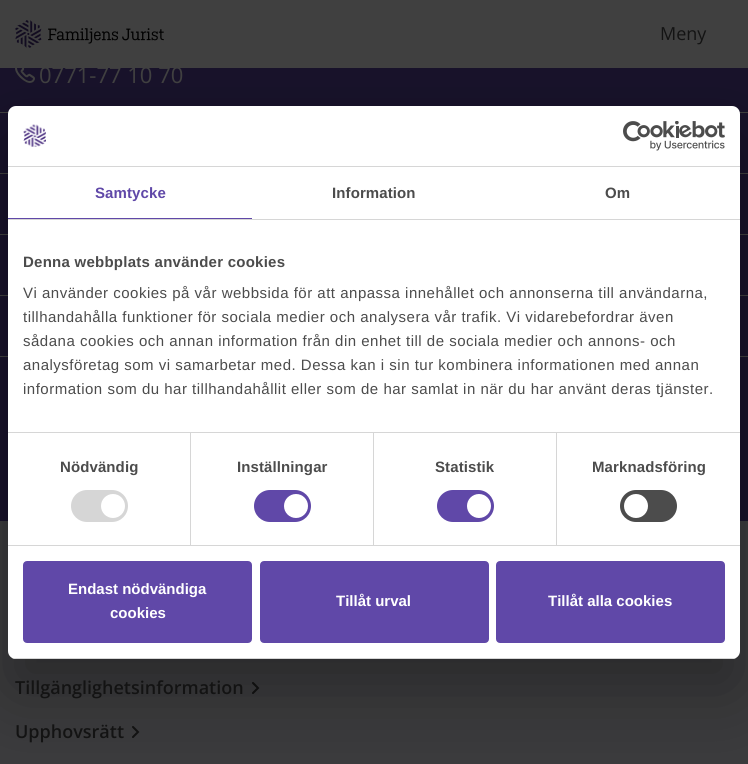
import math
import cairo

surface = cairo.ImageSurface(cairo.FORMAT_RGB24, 748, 764)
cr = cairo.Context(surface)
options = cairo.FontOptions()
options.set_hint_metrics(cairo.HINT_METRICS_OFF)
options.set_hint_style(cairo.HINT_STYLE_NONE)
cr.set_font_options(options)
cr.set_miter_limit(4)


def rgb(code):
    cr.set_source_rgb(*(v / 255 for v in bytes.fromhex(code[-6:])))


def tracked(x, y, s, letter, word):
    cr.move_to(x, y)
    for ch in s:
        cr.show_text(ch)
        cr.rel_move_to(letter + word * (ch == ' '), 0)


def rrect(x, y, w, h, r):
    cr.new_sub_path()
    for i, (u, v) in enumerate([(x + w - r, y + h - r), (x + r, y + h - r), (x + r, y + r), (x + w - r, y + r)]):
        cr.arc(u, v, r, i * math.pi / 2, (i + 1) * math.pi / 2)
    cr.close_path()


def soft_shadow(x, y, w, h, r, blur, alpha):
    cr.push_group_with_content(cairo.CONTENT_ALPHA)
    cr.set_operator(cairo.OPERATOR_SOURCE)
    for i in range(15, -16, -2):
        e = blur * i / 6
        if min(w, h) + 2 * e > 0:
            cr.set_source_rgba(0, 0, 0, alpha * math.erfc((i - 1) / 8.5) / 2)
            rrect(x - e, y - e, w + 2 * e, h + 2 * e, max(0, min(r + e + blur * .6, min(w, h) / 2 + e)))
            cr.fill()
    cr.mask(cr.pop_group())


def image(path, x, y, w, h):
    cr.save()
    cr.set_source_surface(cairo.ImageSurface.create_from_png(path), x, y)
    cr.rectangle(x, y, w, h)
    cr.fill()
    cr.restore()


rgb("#18122a")
cr.paint()
rgb("#404040")
cr.rectangle(0, 0, 748, 68)
cr.fill()
image("img/1.png", 15, 20, 149, 28)
cr.rectangle(0, 112, 748, 1)
cr.fill()
image("img/2.png", 15, 68, 20, 15)
for x, y, w, h, color in [
    (0, 173, 748, 1, "#404040"),
    (0, 234, 748, 1, "#404040"),
    (0, 295, 748, 1, "#404040"),
    (0, 356, 748, 1, "#404040"),
    (0, 521, 748, 243, "#3b3b3d"),
]:
    rgb(color)
    cr.rectangle(x, y, w, h)
    cr.fill()
image("img/3.png", 252, 682, 8, 12)
image("img/4.png", 132, 726, 8, 12)
rgb("#000000")
soft_shadow(8, 138, 732, 553, 8, 34, 0.3)
rgb("#ffffff")
rrect(8, 106, 732, 553, 8)
cr.fill()
rgb("#d6d6d6")
cr.rectangle(8, 166, 732, 1)
cr.fill()
image("img/5.png", 23, 124, 23, 23)
image("img/6.png", 623, 121, 102, 30)
for x, y, w, h, color in [
    (8, 219, 732, 1, "#d6d6d6"),
    (8, 218, 244, 1, "#6048a8"),
    (8, 432, 732, 1, "#d6d6d6"),
    (8, 545, 732, 1, "#d6d6d6"),
    (190, 433, 1, 112, "#d6d6d6"),
]:
    rgb(color)
    cr.rectangle(x, y, w, h)
    cr.fill()
rrect(71, 490, 57, 32, 16)
cr.fill()
rgb("#ffffff")
cr.arc(113, 506, 12, 0, 2 * math.pi)
cr.fill()
rgb("#d6d6d6")
cr.rectangle(373, 433, 1, 112)
cr.fill()
rgb("#6048a8")
rrect(254, 490, 57, 32, 16)
cr.fill()
rgb("#ffffff")
cr.arc(296, 506, 12, 0, 2 * math.pi)
cr.fill()
rgb("#d6d6d6")
cr.rectangle(556, 433, 1, 112)
cr.fill()
rgb("#6048a8")
rrect(437, 490, 57, 32, 16)
cr.fill()
rgb("#ffffff")
cr.arc(479, 506, 12, 0, 2 * math.pi)
cr.fill()
rgb("#4c4c4c")
rrect(620, 490, 57, 32, 16)
cr.fill()
rgb("#ffffff")
cr.arc(636, 506, 12, 0, 2 * math.pi)
cr.fill()
cr.save()
rrect(8, 106, 732, 553, 8)
cr.clip()
rgb("#d6d6d6")
cr.rectangle(8, 658, 732, 1)
cr.fill()
cr.restore()
rgb("#6048a8")
rrect(24, 562, 227, 80, 3)
cr.fill_preserve()
cr.stroke()
rrect(261, 562, 227, 80, 3)
cr.fill_preserve()
cr.stroke()
rrect(497, 562, 227, 80, 3)
cr.fill_preserve()
cr.stroke()
cr.select_font_face("Open Sans")
cr.set_font_size(18)
rgb("#131313")
cr.move_to(660, 40)
cr.show_text("Meny")
cr.set_font_size(22)
rgb("#404040")
cr.move_to(39, 83)
cr.show_text("0771-77 10 70")
cr.select_font_face("Open Sans SemiBold")
cr.set_font_size(18)
rgb("#131313")
cr.move_to(15, 694)
cr.show_text("Tillgänglighetsinformation")
cr.move_to(15, 738)
cr.show_text("Upphovsrätt")
cr.select_font_face("Liberation Sans", cairo.FONT_SLANT_NORMAL, cairo.FONT_WEIGHT_BOLD)
cr.set_font_size(15)
rgb("#6048a8")
tracked(95, 198, "Samtycke", 0.1, 0)
rgb("#4c4c4c")
tracked(332, 198, "Information", 0.1, 0)
tracked(605, 198, "Om", 0.1, 0)
tracked(23, 267, "Denna webbplats använder cookies", 0.25, 0)
cr.select_font_face("Liberation Sans")
for x, y, s in [
    (23, 298, "Vi använder cookies på vår webbsida för att anpassa innehållet och annonserna till användarna,"),
    (23, 322, "tillhandahålla funktioner för sociala medier och analysera vår trafik. Vi vidarebefordrar även"),
    (23, 346, "sådana cookies och annan information från din enhet till de sociala medier och annons- och"),
    (23, 370, "analysföretag som vi samarbetar med. Dessa kan i sin tur kombinera informationen med annan"),
    (23, 394, "information som du har tillhandahållit eller som de har samlat in när du har använt deras tjänster."),
]:
    tracked(x, y, s, 0.5, 0)
cr.select_font_face("Liberation Sans", cairo.FONT_SLANT_NORMAL, cairo.FONT_WEIGHT_BOLD)
for x, y, s in [
    (60, 472, "Nödvändig"),
    (237, 472, "Inställningar"),
    (435, 472, "Statistik"),
    (592, 472, "Marknadsföring"),
]:
    tracked(x, y, s, 0.1, 0)
rgb("#ffffff")
for x, y, s in [
    (68, 594, "Endast nödvändiga"),
    (110, 618, "cookies"),
    (336, 606, "Tillåt urval"),
    (548, 606, "Tillåt alla cookies"),
]:
    cr.move_to(x, y)
    cr.show_text(s)
surface.write_to_png("page.png")
